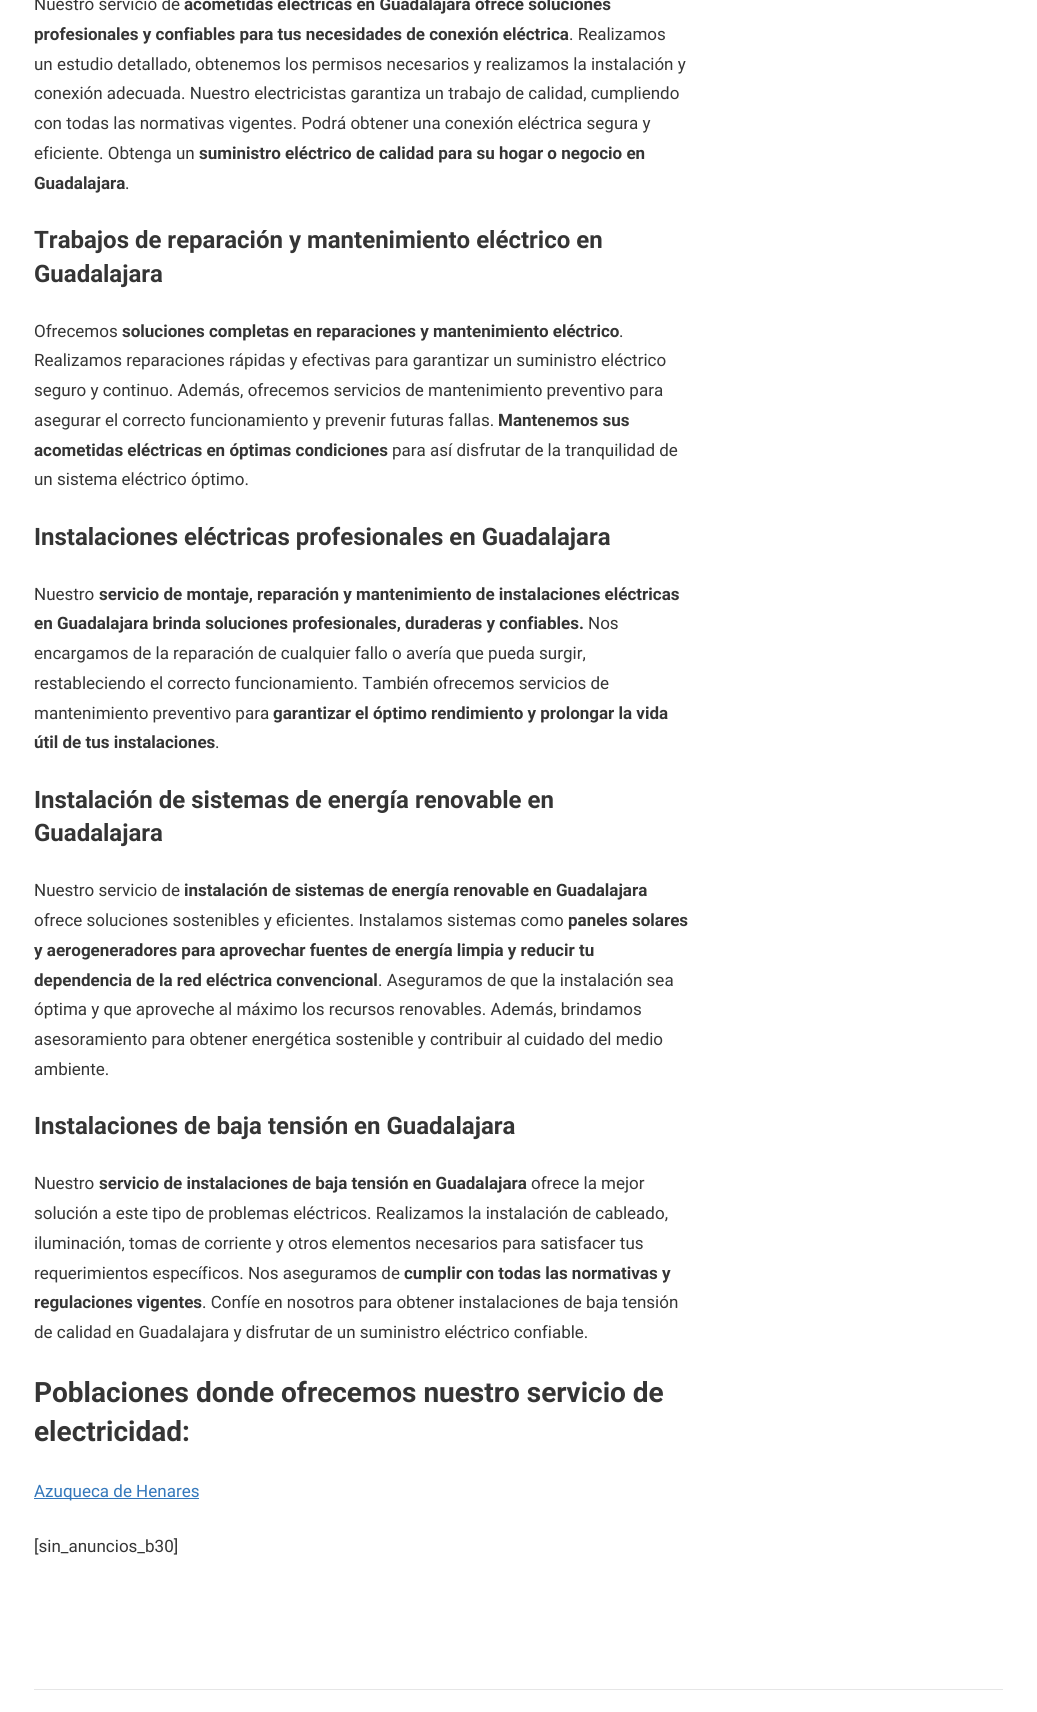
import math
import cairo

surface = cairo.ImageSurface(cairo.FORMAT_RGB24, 1037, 1712)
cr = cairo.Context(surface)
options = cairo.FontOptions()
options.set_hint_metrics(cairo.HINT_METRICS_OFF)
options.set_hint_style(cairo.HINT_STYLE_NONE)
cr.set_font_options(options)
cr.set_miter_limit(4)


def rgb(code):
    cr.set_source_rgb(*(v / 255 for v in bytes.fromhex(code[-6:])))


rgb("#ffffff")
cr.paint()
rgb("#3377bb")
cr.rectangle(34, 1498, 165, 1)
cr.fill()
rgb("#e6e6e6")
cr.rectangle(34, 1689, 969, 1)
cr.fill()
cr.select_font_face("Roboto")
cr.set_font_size(17)
rgb("#353535")
cr.move_to(34, 10)
cr.show_text("Nuestro servicio de")
cr.select_font_face("Roboto", cairo.FONT_SLANT_NORMAL, cairo.FONT_WEIGHT_BOLD)
cr.move_to(184, 10)
cr.show_text("acometidas eléctricas en Guadalajara ofrece soluciones")
cr.move_to(34, 40)
cr.show_text("profesionales y confiables para tus necesidades de conexión eléctrica")
cr.select_font_face("Roboto")
for x, y, s in [
    (569, 40, ". Realizamos"),
    (34, 70, "un estudio detallado, obtenemos los permisos necesarios y realizamos la instalación y"),
    (34, 99, "conexión adecuada. Nuestro electricistas garantiza un trabajo de calidad, cumpliendo"),
    (34, 129, "con todas las normativas vigentes. Podrá obtener una conexión eléctrica segura y"),
    (34, 159, "eficiente. Obtenga un"),
]:
    cr.move_to(x, y)
    cr.show_text(s)
cr.select_font_face("Roboto", cairo.FONT_SLANT_NORMAL, cairo.FONT_WEIGHT_BOLD)
cr.move_to(199, 159)
cr.show_text("suministro eléctrico de calidad para su hogar o negocio en")
cr.move_to(34, 189)
cr.show_text("Guadalajara")
cr.select_font_face("Roboto")
cr.move_to(125, 189)
cr.show_text(".")
cr.select_font_face("Roboto", cairo.FONT_SLANT_NORMAL, cairo.FONT_WEIGHT_BOLD)
cr.set_font_size(24)
cr.move_to(34, 248)
cr.show_text("Trabajos de reparación y mantenimiento eléctrico en")
cr.move_to(34, 282)
cr.show_text("Guadalajara")
cr.select_font_face("Roboto")
cr.set_font_size(17)
cr.move_to(34, 337)
cr.show_text("Ofrecemos")
cr.select_font_face("Roboto", cairo.FONT_SLANT_NORMAL, cairo.FONT_WEIGHT_BOLD)
cr.move_to(122, 337)
cr.show_text("soluciones completas en reparaciones y mantenimiento eléctrico")
cr.select_font_face("Roboto")
for x, y, s in [
    (619, 337, "."),
    (34, 366, "Realizamos reparaciones rápidas y efectivas para garantizar un suministro eléctrico"),
    (34, 396, "seguro y continuo. Además, ofrecemos servicios de mantenimiento preventivo para"),
    (34, 426, "asegurar el correcto funcionamiento y prevenir futuras fallas."),
]:
    cr.move_to(x, y)
    cr.show_text(s)
cr.select_font_face("Roboto", cairo.FONT_SLANT_NORMAL, cairo.FONT_WEIGHT_BOLD)
cr.move_to(498, 426)
cr.show_text("Mantenemos sus")
cr.move_to(34, 456)
cr.show_text("acometidas eléctricas en óptimas condiciones")
cr.select_font_face("Roboto")
cr.move_to(392, 456)
cr.show_text("para así disfrutar de la tranquilidad de")
cr.move_to(34, 485)
cr.show_text("un sistema eléctrico óptimo.")
cr.select_font_face("Roboto", cairo.FONT_SLANT_NORMAL, cairo.FONT_WEIGHT_BOLD)
cr.set_font_size(24)
cr.move_to(34, 545)
cr.show_text("Instalaciones eléctricas profesionales en Guadalajara")
cr.select_font_face("Roboto")
cr.set_font_size(17)
cr.move_to(34, 600)
cr.show_text("Nuestro")
cr.select_font_face("Roboto", cairo.FONT_SLANT_NORMAL, cairo.FONT_WEIGHT_BOLD)
cr.move_to(99, 600)
cr.show_text("servicio de montaje, reparación y mantenimiento de instalaciones eléctricas")
cr.move_to(34, 629)
cr.show_text("en Guadalajara brinda soluciones profesionales, duraderas y confiables.")
cr.select_font_face("Roboto")
for x, y, s in [
    (588, 629, "Nos"),
    (34, 659, "encargamos de la reparación de cualquier fallo o avería que pueda surgir,"),
    (34, 689, "restableciendo el correcto funcionamiento. También ofrecemos servicios de"),
    (34, 719, "mantenimiento preventivo para"),
]:
    cr.move_to(x, y)
    cr.show_text(s)
cr.select_font_face("Roboto", cairo.FONT_SLANT_NORMAL, cairo.FONT_WEIGHT_BOLD)
cr.move_to(273, 719)
cr.show_text("garantizar el óptimo rendimiento y prolongar la vida")
cr.move_to(34, 748)
cr.show_text("útil de tus instalaciones")
cr.select_font_face("Roboto")
cr.move_to(215, 748)
cr.show_text(".")
cr.select_font_face("Roboto", cairo.FONT_SLANT_NORMAL, cairo.FONT_WEIGHT_BOLD)
cr.set_font_size(24)
cr.move_to(34, 808)
cr.show_text("Instalación de sistemas de energía renovable en")
cr.move_to(34, 841)
cr.show_text("Guadalajara")
cr.select_font_face("Roboto")
cr.set_font_size(17)
cr.move_to(34, 896)
cr.show_text("Nuestro servicio de")
cr.select_font_face("Roboto", cairo.FONT_SLANT_NORMAL, cairo.FONT_WEIGHT_BOLD)
cr.move_to(184, 896)
cr.show_text("instalación de sistemas de energía renovable en Guadalajara")
cr.select_font_face("Roboto")
cr.move_to(34, 926)
cr.show_text("ofrece soluciones sostenibles y eficientes. Instalamos sistemas como")
cr.select_font_face("Roboto", cairo.FONT_SLANT_NORMAL, cairo.FONT_WEIGHT_BOLD)
for x, y, s in [
    (568, 926, "paneles solares"),
    (34, 956, "y aerogeneradores para aprovechar fuentes de energía limpia y reducir tu"),
    (34, 986, "dependencia de la red eléctrica convencional"),
]:
    cr.move_to(x, y)
    cr.show_text(s)
cr.select_font_face("Roboto")
for x, y, s in [
    (378, 986, ". Aseguramos de que la instalación sea"),
    (34, 1015, "óptima y que aproveche al máximo los recursos renovables. Además, brindamos"),
    (34, 1045, "asesoramiento para obtener energética sostenible y contribuir al cuidado del medio"),
    (34, 1075, "ambiente."),
]:
    cr.move_to(x, y)
    cr.show_text(s)
cr.select_font_face("Roboto", cairo.FONT_SLANT_NORMAL, cairo.FONT_WEIGHT_BOLD)
cr.set_font_size(24)
cr.move_to(34, 1134)
cr.show_text("Instalaciones de baja tensión en Guadalajara")
cr.select_font_face("Roboto")
cr.set_font_size(17)
cr.move_to(34, 1189)
cr.show_text("Nuestro")
cr.select_font_face("Roboto", cairo.FONT_SLANT_NORMAL, cairo.FONT_WEIGHT_BOLD)
cr.move_to(99, 1189)
cr.show_text("servicio de instalaciones de baja tensión en Guadalajara")
cr.select_font_face("Roboto")
for x, y, s in [
    (531, 1189, "ofrece la mejor"),
    (34, 1219, "solución a este tipo de problemas eléctricos. Realizamos la instalación de cableado,"),
    (34, 1249, "iluminación, tomas de corriente y otros elementos necesarios para satisfacer tus"),
    (34, 1279, "requerimientos específicos. Nos aseguramos de"),
]:
    cr.move_to(x, y)
    cr.show_text(s)
cr.select_font_face("Roboto", cairo.FONT_SLANT_NORMAL, cairo.FONT_WEIGHT_BOLD)
cr.move_to(404, 1279)
cr.show_text("cumplir con todas las normativas y")
cr.move_to(34, 1308)
cr.show_text("regulaciones vigentes")
cr.select_font_face("Roboto")
cr.move_to(202, 1308)
cr.show_text(". Confíe en nosotros para obtener instalaciones de baja tensión")
cr.move_to(34, 1338)
cr.show_text("de calidad en Guadalajara y disfrutar de un suministro eléctrico confiable.")
cr.select_font_face("Roboto", cairo.FONT_SLANT_NORMAL, cairo.FONT_WEIGHT_BOLD)
cr.set_font_size(28)
cr.move_to(34, 1402)
cr.show_text("Poblaciones donde ofrecemos nuestro servicio de")
cr.move_to(34, 1441)
cr.show_text("electricidad:")
cr.select_font_face("Roboto")
cr.set_font_size(17)
rgb("#3377bb")
cr.move_to(34, 1497)
cr.show_text("Azuqueca de Henares")
rgb("#353535")
cr.move_to(34, 1552)
cr.show_text("[sin_anuncios_b30]")
surface.write_to_png("page.png")
